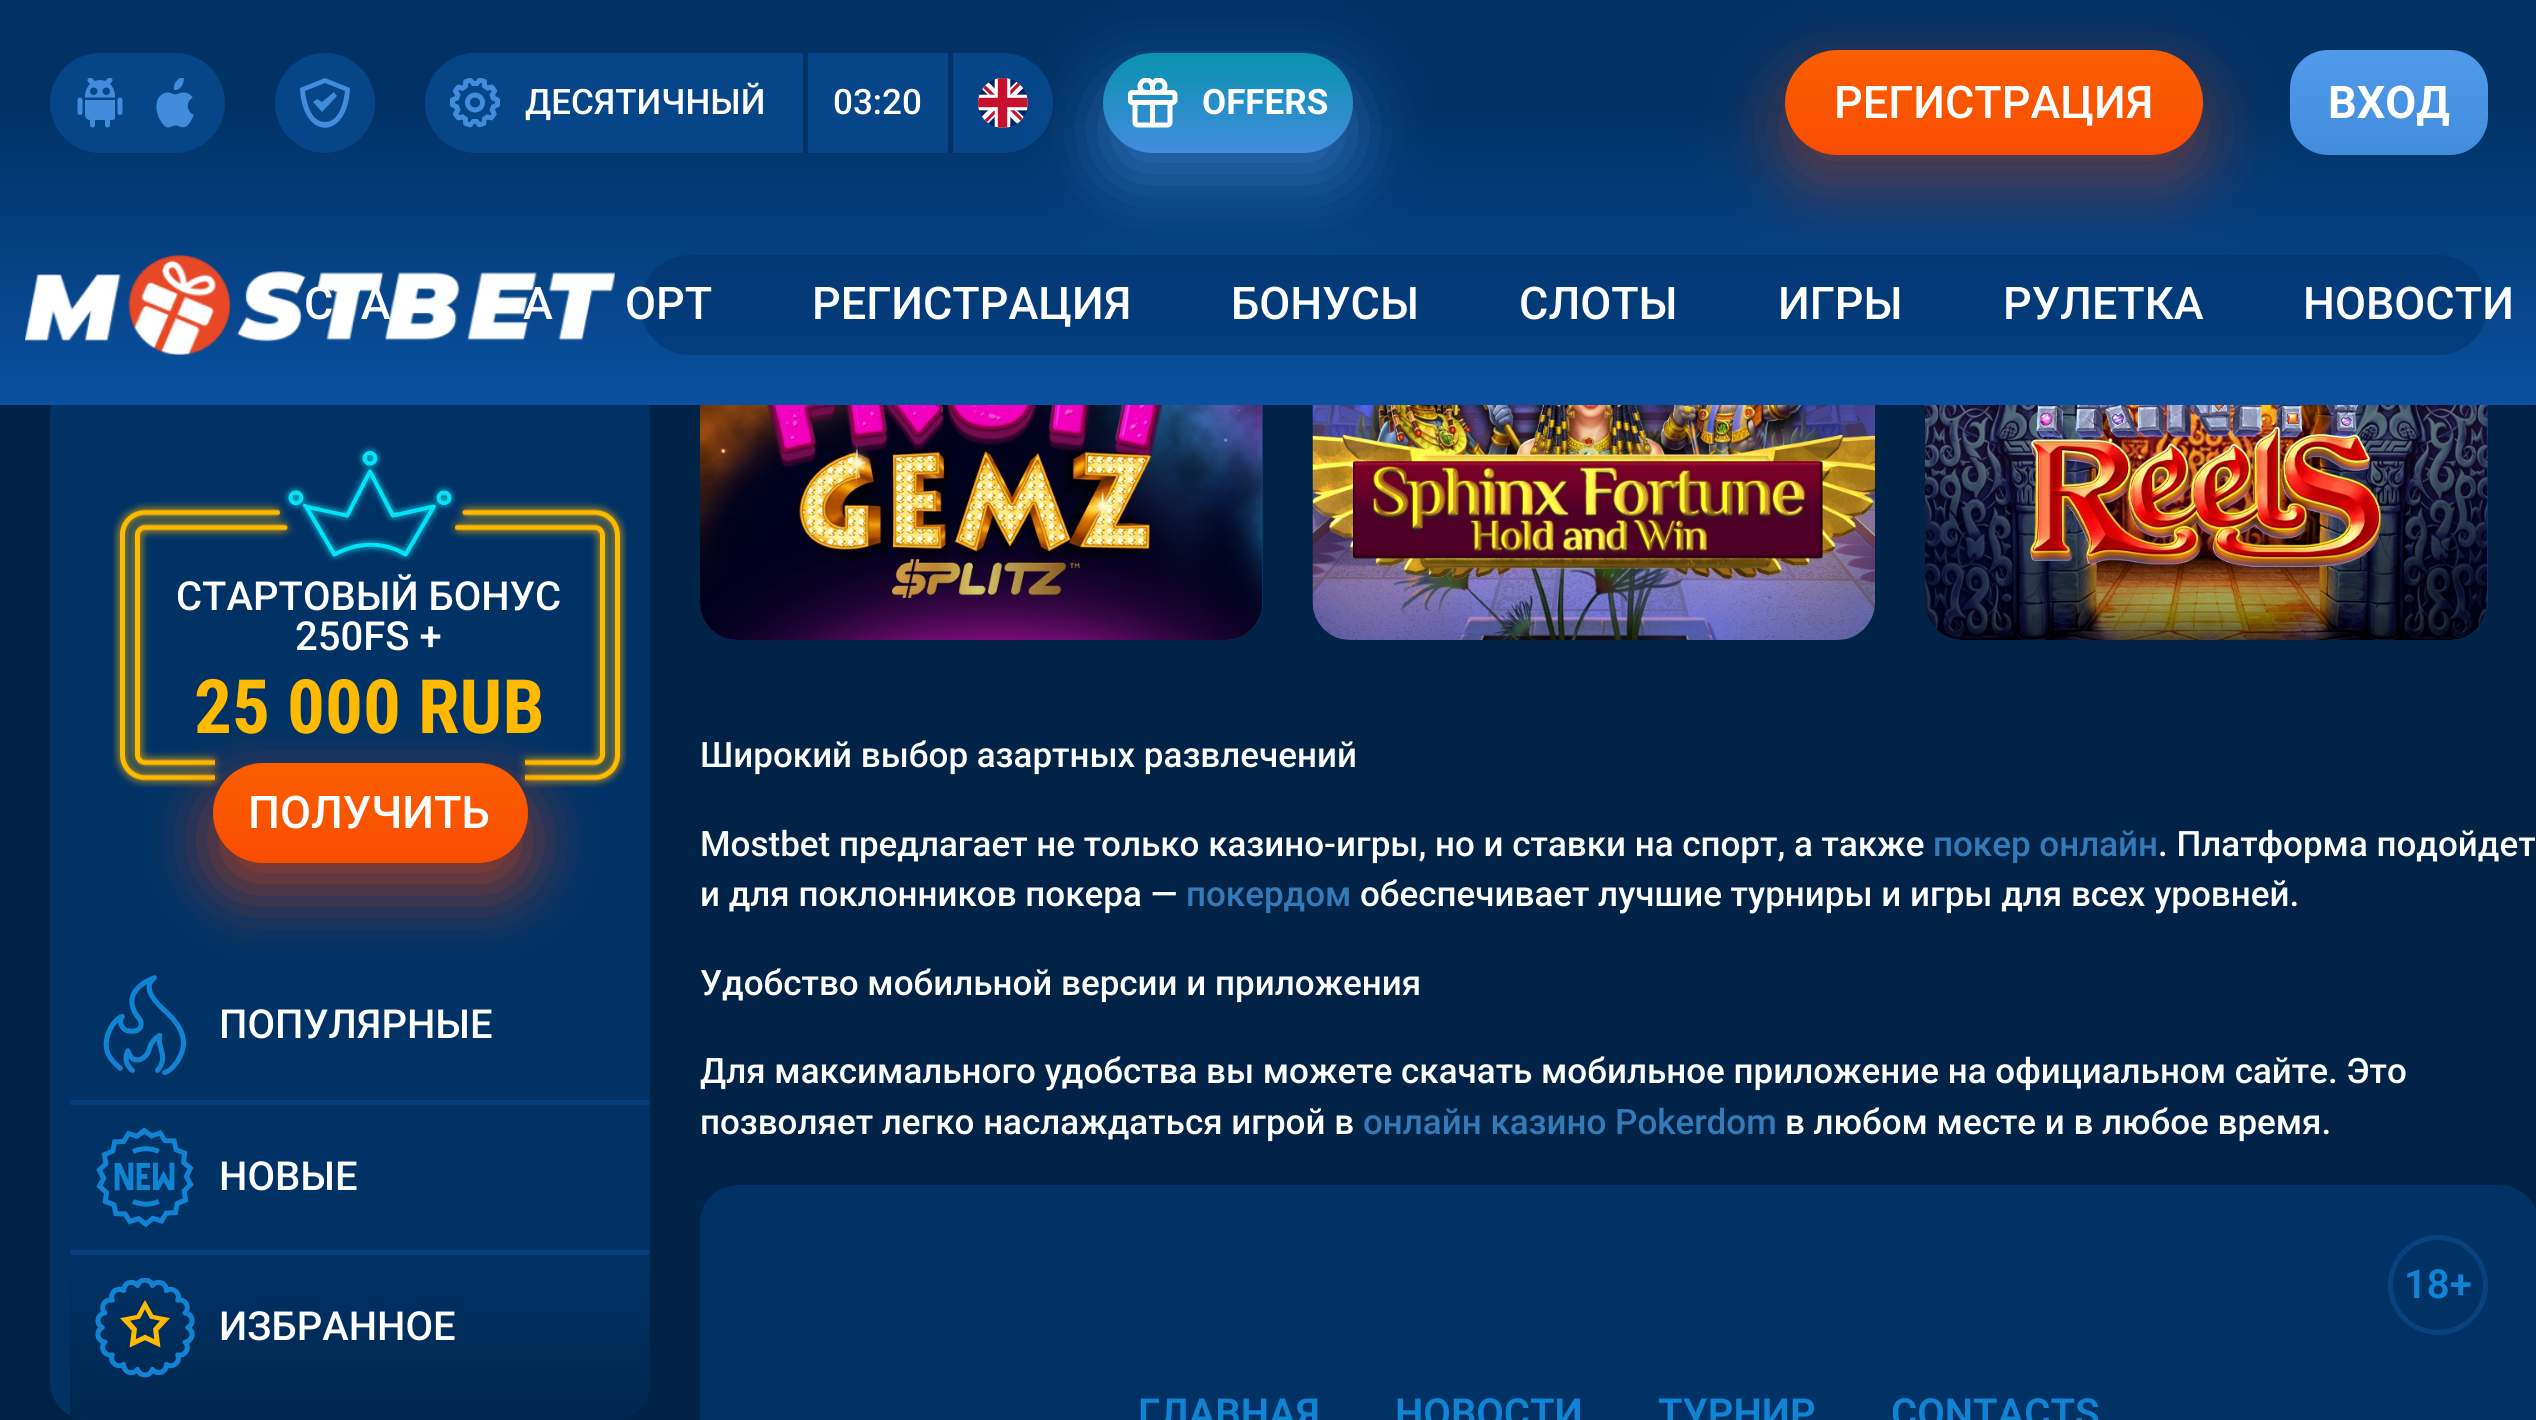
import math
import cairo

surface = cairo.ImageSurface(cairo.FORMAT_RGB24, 2536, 1420)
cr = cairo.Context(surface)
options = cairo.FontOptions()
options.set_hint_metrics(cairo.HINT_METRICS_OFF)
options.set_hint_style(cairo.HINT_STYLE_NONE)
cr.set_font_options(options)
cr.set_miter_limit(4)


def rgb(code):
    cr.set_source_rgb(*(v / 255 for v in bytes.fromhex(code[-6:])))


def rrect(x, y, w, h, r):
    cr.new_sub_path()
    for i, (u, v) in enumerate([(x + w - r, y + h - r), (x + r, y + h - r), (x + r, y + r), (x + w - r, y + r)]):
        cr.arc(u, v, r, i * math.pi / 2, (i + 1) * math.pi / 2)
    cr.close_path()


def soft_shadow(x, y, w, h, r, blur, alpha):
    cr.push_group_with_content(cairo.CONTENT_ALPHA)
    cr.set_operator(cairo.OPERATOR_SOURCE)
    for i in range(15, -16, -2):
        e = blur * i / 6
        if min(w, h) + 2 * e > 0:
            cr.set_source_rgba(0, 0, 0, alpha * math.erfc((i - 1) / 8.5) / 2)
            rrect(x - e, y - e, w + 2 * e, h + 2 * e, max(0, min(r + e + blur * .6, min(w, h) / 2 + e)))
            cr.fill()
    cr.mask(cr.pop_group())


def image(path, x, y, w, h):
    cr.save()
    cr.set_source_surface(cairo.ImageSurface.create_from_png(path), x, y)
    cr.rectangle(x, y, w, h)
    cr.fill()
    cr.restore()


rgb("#002347")
cr.paint()
rgb("#003266")
rrect(50, 378, 600, 1042, 38)
cr.fill()
rgb("#13397c")
rrect(700, 240, 563, 400, 38)
cr.fill()
rrect(1925, 240, 563, 400, 38)
cr.fill()
gradient = cairo.LinearGradient(1269, 405, 1269, 0)
gradient.add_color_stop_rgba(0, 0.039, 0.314, 0.627, 1)
gradient.add_color_stop_rgba(0.73, 0, 0.196, 0.4, 1)
gradient.add_color_stop_rgba(0.98, 0, 0.196, 0.4, 1)
cr.set_source(gradient)
cr.rectangle(0, 0, 2536, 405)
cr.fill()
rgb("#054588")
rrect(50, 53, 175, 100, 50)
cr.fill()
image("img/1.png", 77, 78, 46, 50)
image("img/2.png", 156, 78, 38, 50)
cr.arc(325, 103, 50, 0, 2 * math.pi)
cr.fill()
rgb("#428cdc")
cr.new_path()
cr.move_to(334, 92)
cr.line_to(322, 102)
cr.line_to(317, 99)
cr.line_to(313, 102)
cr.line_to(322, 112)
cr.line_to(337, 96)
cr.close_path()
cr.move_to(325, 78)
cr.line_to(300, 88)
cr.curve_to(302, 141, 348, 141, 350, 88)
cr.close_path()
cr.move_to(325, 122)
cr.curve_to(310, 122, 306, 100, 305, 91)
cr.line_to(325, 83)
cr.line_to(345, 91)
cr.curve_to(344, 100, 340, 122, 325, 122)
cr.close_path()
cr.fill()
rgb("#054588")
rrect(425, 53, 628, 100, 50)
cr.fill()
image("img/3.png", 450, 78, 50, 50)
rgb("#003266")
cr.rectangle(803, 53, 5, 100)
cr.fill()
cr.rectangle(948, 53, 5, 100)
cr.fill()
image("img/4.png", 978, 78, 50, 50)
rgb("#fa4100")
soft_shadow(1785, 75, 418, 105, 52.5, 37.5, 0.4)
cr.set_source_rgba(0, 0.192, 0.4, 0.5)
rrect(640, 255, 1848, 100, 50)
cr.fill()
rgb("#428cdc")
soft_shadow(1103, 80, 250, 100, 50, 34, 0.63)
gradient = cairo.LinearGradient(1228, 153, 1228, 53)
gradient.add_color_stop_rgba(0, 0.259, 0.549, 0.863, 1)
gradient.add_color_stop_rgba(1, 0.035, 0.573, 0.686, 1)
cr.set_source(gradient)
rrect(1103, 53, 250, 100, 50)
cr.fill()
image("img/5.png", 1128, 78, 50, 50)
gradient = cairo.LinearGradient(1994, 155, 1994, 50)
gradient.add_color_stop_rgba(0, 0.98, 0.302, 0, 1)
gradient.add_color_stop_rgba(1, 0.98, 0.369, 0, 1)
cr.set_source(gradient)
rrect(1785, 50, 418, 105, 52.5)
cr.fill()
gradient = cairo.LinearGradient(2389, 155, 2389, 50)
gradient.add_color_stop_rgba(0, 0.259, 0.549, 0.863, 1)
gradient.add_color_stop_rgba(0.97, 0.314, 0.604, 0.918, 1)
gradient.add_color_stop_rgba(1, 0.314, 0.604, 0.918, 1)
cr.set_source(gradient)
rrect(2290, 50, 198, 105, 38)
cr.fill()
image("img/6.png", 25, 254, 590, 101)
cr.save()
rrect(50, 378, 600, 1042, 38)
cr.clip()
rgb("#003266")
rrect(50, 478, 638, 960, 38)
cr.fill()
cr.restore()
image("img/8.png", 113, 502, 514, 286)
image("img/7.png", 283, 445, 174, 117)
cr.save()
rrect(50, 378, 600, 1042, 38)
cr.clip()
rgb("#003266")
cr.new_path()
cr.move_to(108, 950)
cr.line_to(632, 950)
cr.curve_to(653, 950, 670, 967, 670, 988)
cr.line_to(670, 1400)
cr.line_to(70, 1400)
cr.line_to(70, 988)
cr.curve_to(70, 967, 87, 950, 108, 950)
cr.close_path()
cr.fill()
cr.restore()
image("img/9.png", 103, 975, 84, 100)
rgb("#fa4100")
soft_shadow(213, 790, 315, 100, 50, 34, 0.63)
gradient = cairo.LinearGradient(370, 863, 370, 763)
gradient.add_color_stop_rgba(0, 0.98, 0.302, 0, 1)
gradient.add_color_stop_rgba(1, 0.98, 0.369, 0, 1)
cr.set_source(gradient)
rrect(213, 763, 315, 100, 50)
cr.fill()
rgb("#043e7d")
cr.rectangle(70, 1100, 580, 5)
cr.fill()
image("img/10.png", 96, 1128, 98, 100)
cr.save()
rrect(50, 378, 600, 1042, 38)
cr.clip()
gradient = cairo.LinearGradient(370, 1255, 370, 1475)
gradient.add_color_stop_rgba(0, 0, 0.137, 0.278, 0)
gradient.add_color_stop_rgba(1, 0, 0.137, 0.278, 1)
cr.set_source(gradient)
cr.new_path()
cr.move_to(70, 1255)
cr.line_to(650, 1255)
cr.line_to(650, 1382)
cr.curve_to(650, 1403, 633, 1420, 612, 1420)
cr.line_to(70, 1420)
cr.close_path()
cr.fill()
cr.restore()
cr.rectangle(70, 1250, 580, 5)
cr.fill()
image("img/11.png", 95, 1278, 100, 100)
image("img/12.png", 700, 405, 563, 235)
image("img/13.png", 700, 405, 563, 235)
image("img/14.png", 1312, 405, 563, 235)
image("img/15.png", 1312, 405, 563, 235)
image("img/16.png", 1925, 405, 563, 235)
image("img/17.png", 1925, 405, 563, 235)
rgb("#003266")
cr.new_path()
cr.move_to(738, 1185)
cr.line_to(2500, 1185)
cr.curve_to(2521, 1185, 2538, 1202, 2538, 1223)
cr.line_to(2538, 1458)
cr.line_to(700, 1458)
cr.line_to(700, 1223)
cr.curve_to(700, 1202, 717, 1185, 738, 1185)
cr.close_path()
cr.fill()
cr.arc(2438, 1285, 47.5, 0, 2 * math.pi)
rgb("#09437f")
cr.set_line_width(5)
cr.stroke()
cr.select_font_face("Roboto Medium")
cr.set_font_size(35)
rgb("#ffffff")
cr.move_to(525, 114)
cr.show_text("ДЕСЯТИЧНЫЙ")
cr.move_to(833, 114)
cr.show_text("03:20")
cr.select_font_face("Roboto", cairo.FONT_SLANT_NORMAL, cairo.FONT_WEIGHT_BOLD)
cr.move_to(1202, 114)
cr.show_text("OFFERS")
cr.select_font_face("Roboto Medium")
cr.set_font_size(45)
cr.move_to(1834, 118)
cr.show_text("РЕГИСТРАЦИЯ")
cr.select_font_face("Roboto", cairo.FONT_SLANT_NORMAL, cairo.FONT_WEIGHT_BOLD)
cr.move_to(2328, 118)
cr.show_text("ВХОД")
cr.select_font_face("Roboto Medium")
for x, y, s in [
    (304, 319, "СТА"),
    (523, 319, "А"),
    (625, 319, "ОРТ"),
    (812, 319, "РЕГИСТРАЦИЯ"),
    (1231, 319, "БОНУСЫ"),
    (1519, 319, "СЛОТЫ"),
    (1778, 319, "ИГРЫ"),
    (2003, 319, "РУЛЕТКА"),
    (2303, 319, "НОВОСТИ"),
]:
    cr.move_to(x, y)
    cr.show_text(s)
cr.set_font_size(40)
cr.move_to(176, 610)
cr.show_text("СТАРТОВЫЙ БОНУС")
cr.move_to(295, 650)
cr.show_text("250FS +")
cr.select_font_face("Roboto Condensed", cairo.FONT_SLANT_NORMAL, cairo.FONT_WEIGHT_BOLD)
cr.set_font_size(75)
rgb("#ffba00")
cr.move_to(194, 733)
cr.show_text("25 000 RUB")
cr.select_font_face("Roboto Medium")
cr.set_font_size(45)
rgb("#ffffff")
cr.move_to(248, 828)
cr.show_text("ПОЛУЧИТЬ")
cr.set_font_size(40)
for x, y, s in [
    (219, 1038, "ПОПУЛЯРНЫЕ"),
    (219, 1190, "НОВЫЕ"),
    (219, 1340, "ИЗБРАННОЕ"),
]:
    cr.move_to(x, y)
    cr.show_text(s)
cr.set_font_size(35)
cr.move_to(700, 767)
cr.show_text("Широкий выбор азартных развлечений")
cr.move_to(700, 856)
cr.show_text("Mostbet предлагает не только казино-игры, но и ставки на спорт, а также")
rgb("#337ab7")
cr.move_to(1933, 856)
cr.show_text("покер онлайн")
rgb("#ffffff")
cr.move_to(2158, 856)
cr.show_text(". Платформа подойдет")
cr.move_to(700, 906)
cr.show_text("и для поклонников покера —")
rgb("#337ab7")
cr.move_to(1186, 906)
cr.show_text("покердом")
rgb("#ffffff")
for x, y, s in [
    (1360, 906, "обеспечивает лучшие турниры и игры для всех уровней."),
    (700, 995, "Удобство мобильной версии и приложения"),
    (700, 1083, "Для максимального удобства вы можете скачать мобильное приложение на официальном сайте. Это"),
    (700, 1134, "позволяет легко наслаждаться игрой в"),
]:
    cr.move_to(x, y)
    cr.show_text(s)
rgb("#337ab7")
cr.move_to(1363, 1134)
cr.show_text("онлайн казино Pokerdom")
rgb("#ffffff")
cr.move_to(1785, 1134)
cr.show_text("в любом месте и в любое время.")
cr.select_font_face("Roboto SemiBold")
cr.set_font_size(40)
rgb("#1183d3")
for x, y, s in [
    (2404, 1298, "18+"),
    (1138, 1427, "ГЛАВНАЯ"),
    (1395, 1427, "НОВОСТИ"),
    (1658, 1427, "ТУРНИР"),
    (1891, 1427, "CONTACTS"),
]:
    cr.move_to(x, y)
    cr.show_text(s)
surface.write_to_png("page.png")
